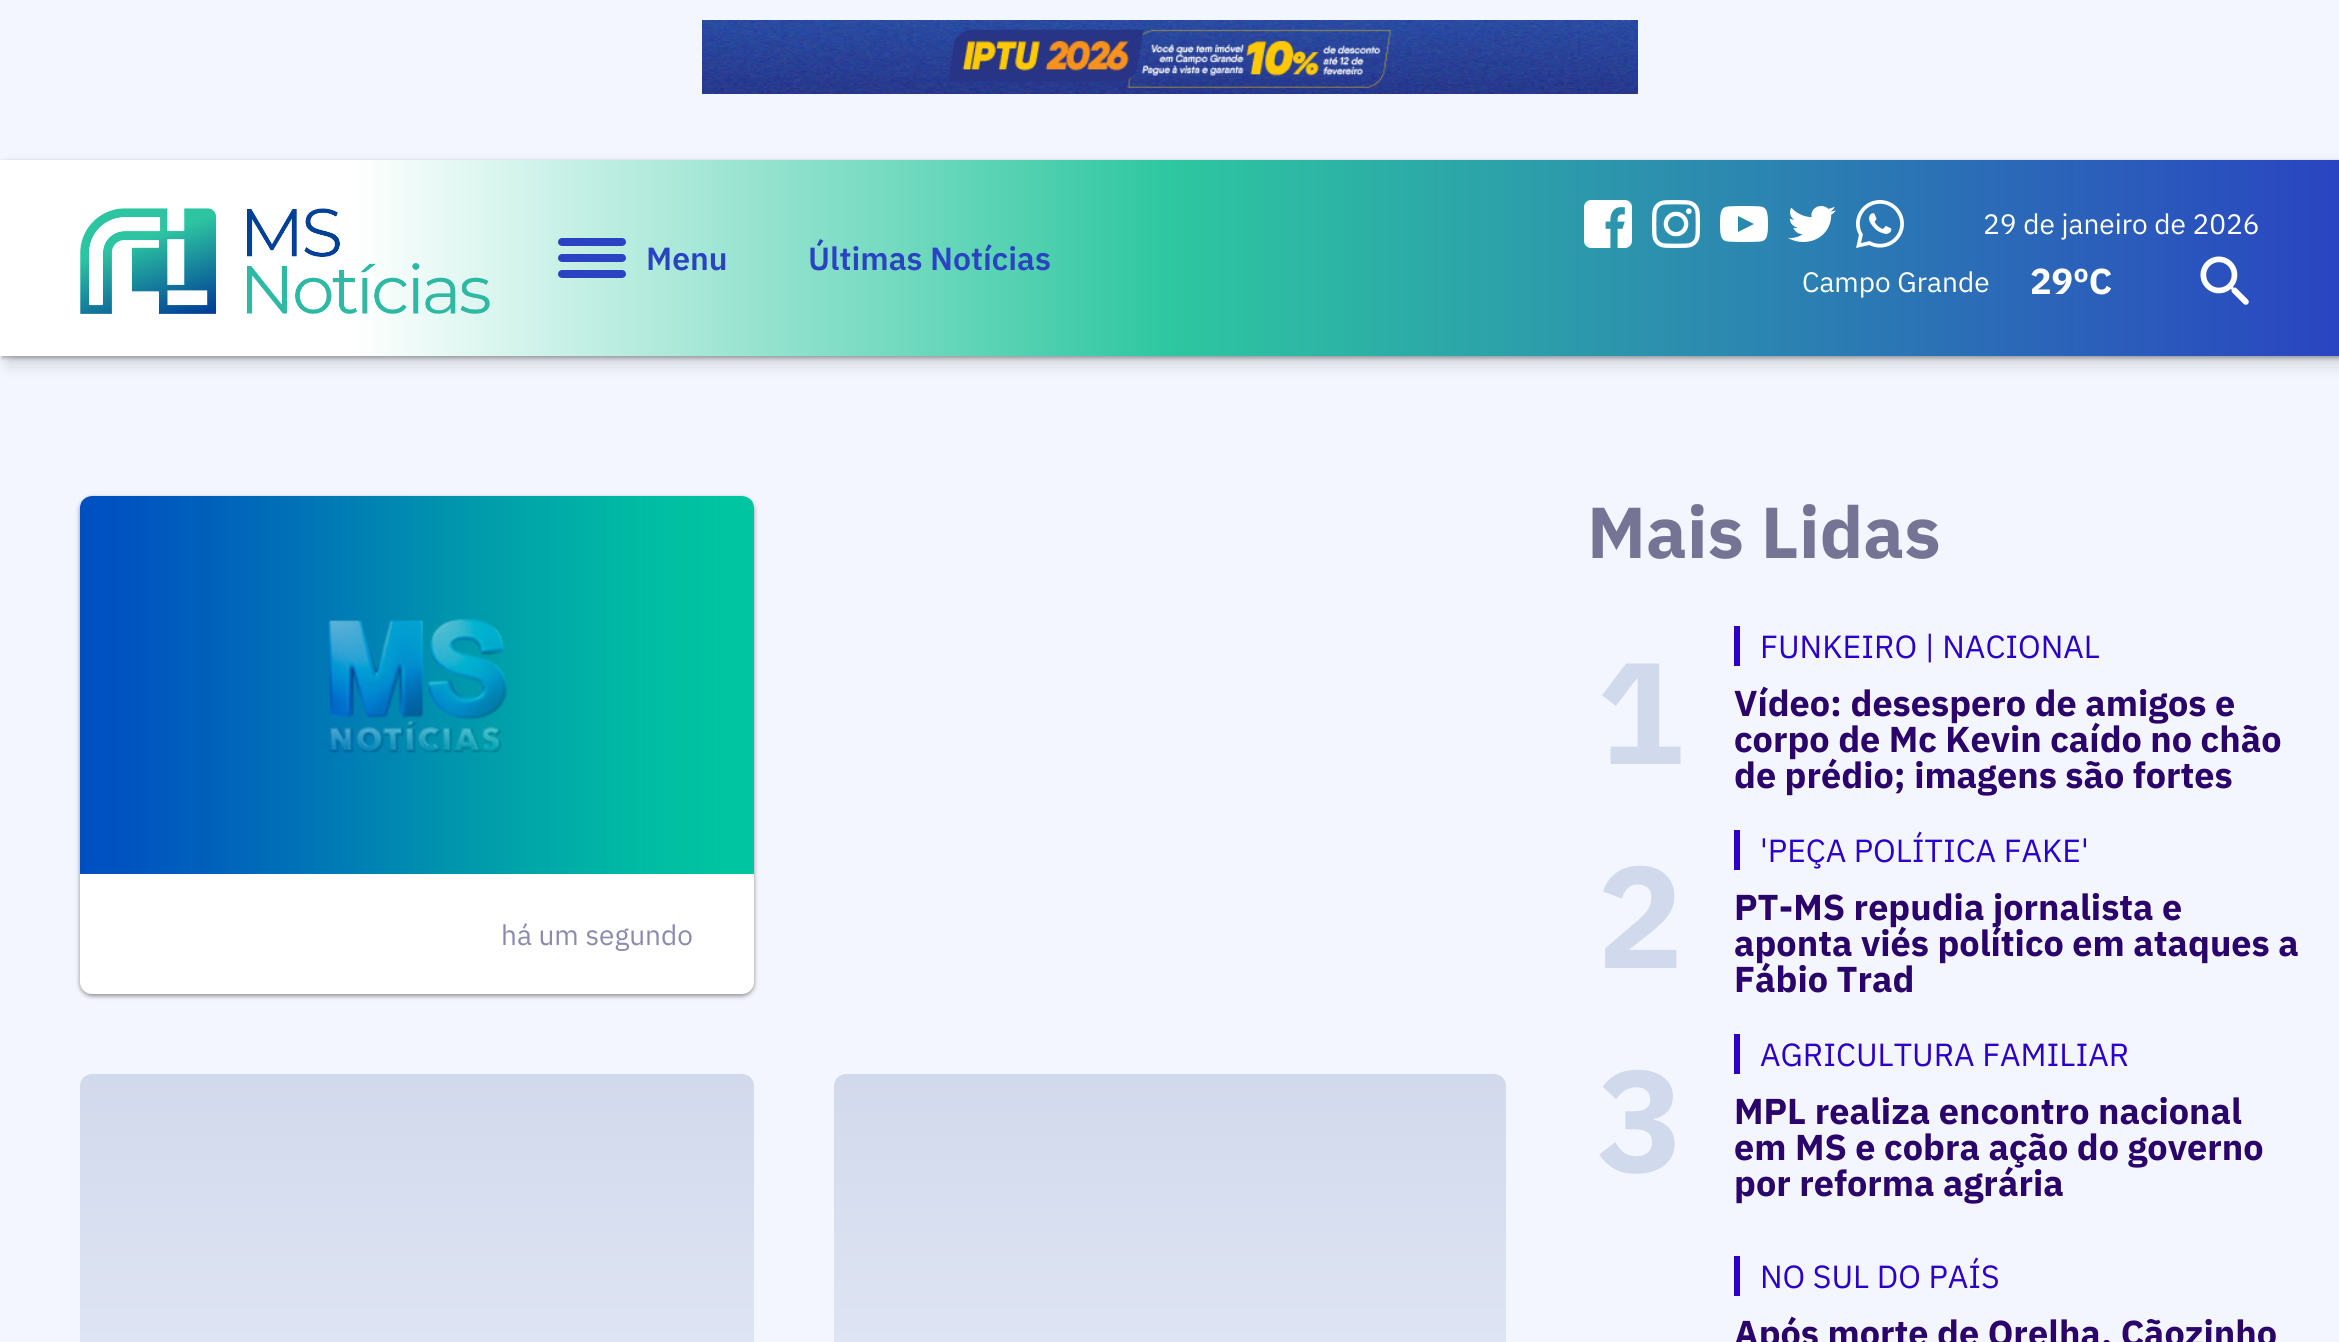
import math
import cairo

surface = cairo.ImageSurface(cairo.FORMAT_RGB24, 2339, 1342)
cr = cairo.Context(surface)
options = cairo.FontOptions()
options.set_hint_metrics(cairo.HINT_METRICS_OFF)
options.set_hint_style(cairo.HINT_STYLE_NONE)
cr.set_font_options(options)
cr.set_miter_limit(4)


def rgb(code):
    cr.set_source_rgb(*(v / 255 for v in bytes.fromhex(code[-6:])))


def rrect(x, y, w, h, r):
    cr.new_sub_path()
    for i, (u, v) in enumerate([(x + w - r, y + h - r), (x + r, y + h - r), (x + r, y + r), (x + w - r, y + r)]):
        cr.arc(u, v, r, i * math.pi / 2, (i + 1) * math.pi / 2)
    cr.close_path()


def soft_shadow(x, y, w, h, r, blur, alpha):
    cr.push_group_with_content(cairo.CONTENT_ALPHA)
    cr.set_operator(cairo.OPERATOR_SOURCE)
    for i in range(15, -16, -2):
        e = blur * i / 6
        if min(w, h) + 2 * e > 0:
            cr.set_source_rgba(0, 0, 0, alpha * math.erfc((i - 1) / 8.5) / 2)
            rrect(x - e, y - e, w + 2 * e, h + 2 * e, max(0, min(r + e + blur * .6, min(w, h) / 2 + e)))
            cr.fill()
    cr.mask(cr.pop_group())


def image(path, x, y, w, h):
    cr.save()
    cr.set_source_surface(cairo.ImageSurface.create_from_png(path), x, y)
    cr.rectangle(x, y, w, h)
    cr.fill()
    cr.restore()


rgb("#f3f6fe")
cr.paint()
image("img/1.png", 702, 20, 936, 74)
rgb("#000000")
soft_shadow(2, 162, 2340, 196, 0, 2, 0.3)
soft_shadow(8, 168, 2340, 196, 0, 8, 0.15)
gradient = cairo.LinearGradient(0, 258, 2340, 258)
gradient.add_color_stop_rgba(0.15, 1, 1, 1, 1)
gradient.add_color_stop_rgba(0.5, 0.176, 0.78, 0.627, 1)
gradient.add_color_stop_rgba(1, 0.165, 0.267, 0.757, 1)
cr.set_source(gradient)
cr.rectangle(0, 160, 2339, 196)
cr.fill()
image("img/2.png", 80, 208, 410, 106)
rgb("#2a44c1")
rrect(558, 254, 68, 8, 4)
cr.fill()
rrect(558, 238, 68, 8, 4)
cr.fill()
rrect(558, 270, 68, 8, 4)
cr.fill()
image("img/3.png", 1584, 200, 48, 48)
image("img/4.png", 1652, 200, 48, 48)
image("img/5.png", 1720, 206, 48, 36)
image("img/6.png", 1788, 206, 48, 36)
image("img/7.png", 1856, 200, 48, 48)
image("img/8.png", 2200, 256, 49, 49)
rgb("#000000")
soft_shadow(80, 498, 674, 498, 12, 2, 0.3)
soft_shadow(80, 498, 674, 498, 12, 3, 0.15)
rgb("#ffffff")
rrect(80, 496, 674, 498, 12)
cr.fill()
image("img/9.png", 80, 496, 674, 378)
gradient = cairo.LinearGradient(417, 1074, 417, 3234)
gradient.add_color_stop_rgba(0, 0.82, 0.851, 0.925, 1)
gradient.add_color_stop_rgba(0.33, 0.953, 0.965, 0.996, 1)
gradient.add_color_stop_rgba(0.66, 0.82, 0.851, 0.925, 1)
gradient.add_color_stop_rgba(1, 0.953, 0.965, 0.996, 1)
cr.set_source(gradient)
rrect(80, 1074, 674, 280, 12)
cr.fill()
gradient = cairo.LinearGradient(1170, 1074, 1170, 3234)
gradient.add_color_stop_rgba(0, 0.82, 0.851, 0.925, 1)
gradient.add_color_stop_rgba(0.33, 0.953, 0.965, 0.996, 1)
gradient.add_color_stop_rgba(0.66, 0.82, 0.851, 0.925, 1)
gradient.add_color_stop_rgba(1, 0.953, 0.965, 0.996, 1)
cr.set_source(gradient)
rrect(834, 1074, 672, 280, 12)
cr.fill()
for x, y, w, h, color in [
    (1734, 626, 6, 40, "#2b00c9"),
    (1734, 830, 6, 40, "#2b00c9"),
    (1734, 1034, 6, 40, "#2b00c9"),
    (1734, 1256, 6, 40, "#2b00c9"),
]:
    rgb(color)
    cr.rectangle(x, y, w, h)
    cr.fill()
cr.select_font_face("IBM Plex Sans SemiBold")
cr.set_font_size(32)
rgb("#2a44c1")
cr.move_to(646, 270)
cr.show_text("Menu")
cr.move_to(808, 270)
cr.show_text("Últimas Notícias")
cr.select_font_face("IBM Plex Sans")
cr.set_font_size(28)
rgb("#ffffff")
cr.move_to(1983, 234)
cr.show_text("29 de janeiro de 2026")
cr.move_to(1802, 292)
cr.show_text("Campo Grande")
cr.select_font_face("IBM Plex Sans", cairo.FONT_SLANT_NORMAL, cairo.FONT_WEIGHT_BOLD)
cr.set_font_size(36)
cr.move_to(2030, 294)
cr.show_text("29ºC")
cr.select_font_face("IBM Plex Sans")
cr.set_font_size(28)
rgb("#8c8aae")
cr.move_to(501, 945)
cr.show_text("há um segundo")
cr.select_font_face("IBM Plex Sans", cairo.FONT_SLANT_NORMAL, cairo.FONT_WEIGHT_BOLD)
cr.set_font_size(72)
rgb("#767495")
cr.move_to(1587, 558)
cr.show_text("Mais Lidas")
cr.set_font_size(144)
rgb("#d1d9ec")
cr.move_to(1597, 764)
cr.show_text("1")
cr.select_font_face("IBM Plex Sans")
cr.set_font_size(32)
rgb("#2b00c9")
cr.move_to(1760, 658)
cr.show_text("FUNKEIRO | NACIONAL")
cr.select_font_face("IBM Plex Sans", cairo.FONT_SLANT_NORMAL, cairo.FONT_WEIGHT_BOLD)
cr.set_font_size(36)
rgb("#2a046b")
for x, y, s in [
    (1734, 716, "Vídeo: desespero de amigos e"),
    (1734, 752, "corpo de Mc Kevin caído no chão"),
    (1734, 788, "de prédio; imagens são fortes"),
]:
    cr.move_to(x, y)
    cr.show_text(s)
cr.set_font_size(144)
rgb("#d1d9ec")
cr.move_to(1597, 968)
cr.show_text("2")
cr.select_font_face("IBM Plex Sans")
cr.set_font_size(32)
rgb("#2b00c9")
cr.move_to(1760, 862)
cr.show_text("'PEÇA POLÍTICA FAKE'")
cr.select_font_face("IBM Plex Sans", cairo.FONT_SLANT_NORMAL, cairo.FONT_WEIGHT_BOLD)
cr.set_font_size(36)
rgb("#2a046b")
for x, y, s in [
    (1734, 920, "PT-MS repudia jornalista e"),
    (1734, 956, "aponta viés político em ataques a"),
    (1734, 992, "Fábio Trad"),
]:
    cr.move_to(x, y)
    cr.show_text(s)
cr.set_font_size(144)
rgb("#d1d9ec")
cr.move_to(1597, 1172)
cr.show_text("3")
cr.select_font_face("IBM Plex Sans")
cr.set_font_size(32)
rgb("#2b00c9")
cr.move_to(1760, 1066)
cr.show_text("AGRICULTURA FAMILIAR")
cr.select_font_face("IBM Plex Sans", cairo.FONT_SLANT_NORMAL, cairo.FONT_WEIGHT_BOLD)
cr.set_font_size(36)
rgb("#2a046b")
for x, y, s in [
    (1734, 1124, "MPL realiza encontro nacional"),
    (1734, 1160, "em MS e cobra ação do governo"),
    (1734, 1196, "por reforma agrária"),
]:
    cr.move_to(x, y)
    cr.show_text(s)
cr.select_font_face("IBM Plex Sans")
cr.set_font_size(32)
rgb("#2b00c9")
cr.move_to(1760, 1288)
cr.show_text("NO SUL DO PAÍS")
cr.select_font_face("IBM Plex Sans", cairo.FONT_SLANT_NORMAL, cairo.FONT_WEIGHT_BOLD)
cr.set_font_size(36)
rgb("#2a046b")
cr.move_to(1734, 1346)
cr.show_text("Após morte de Orelha, Cãozinho")
surface.write_to_png("page.png")
